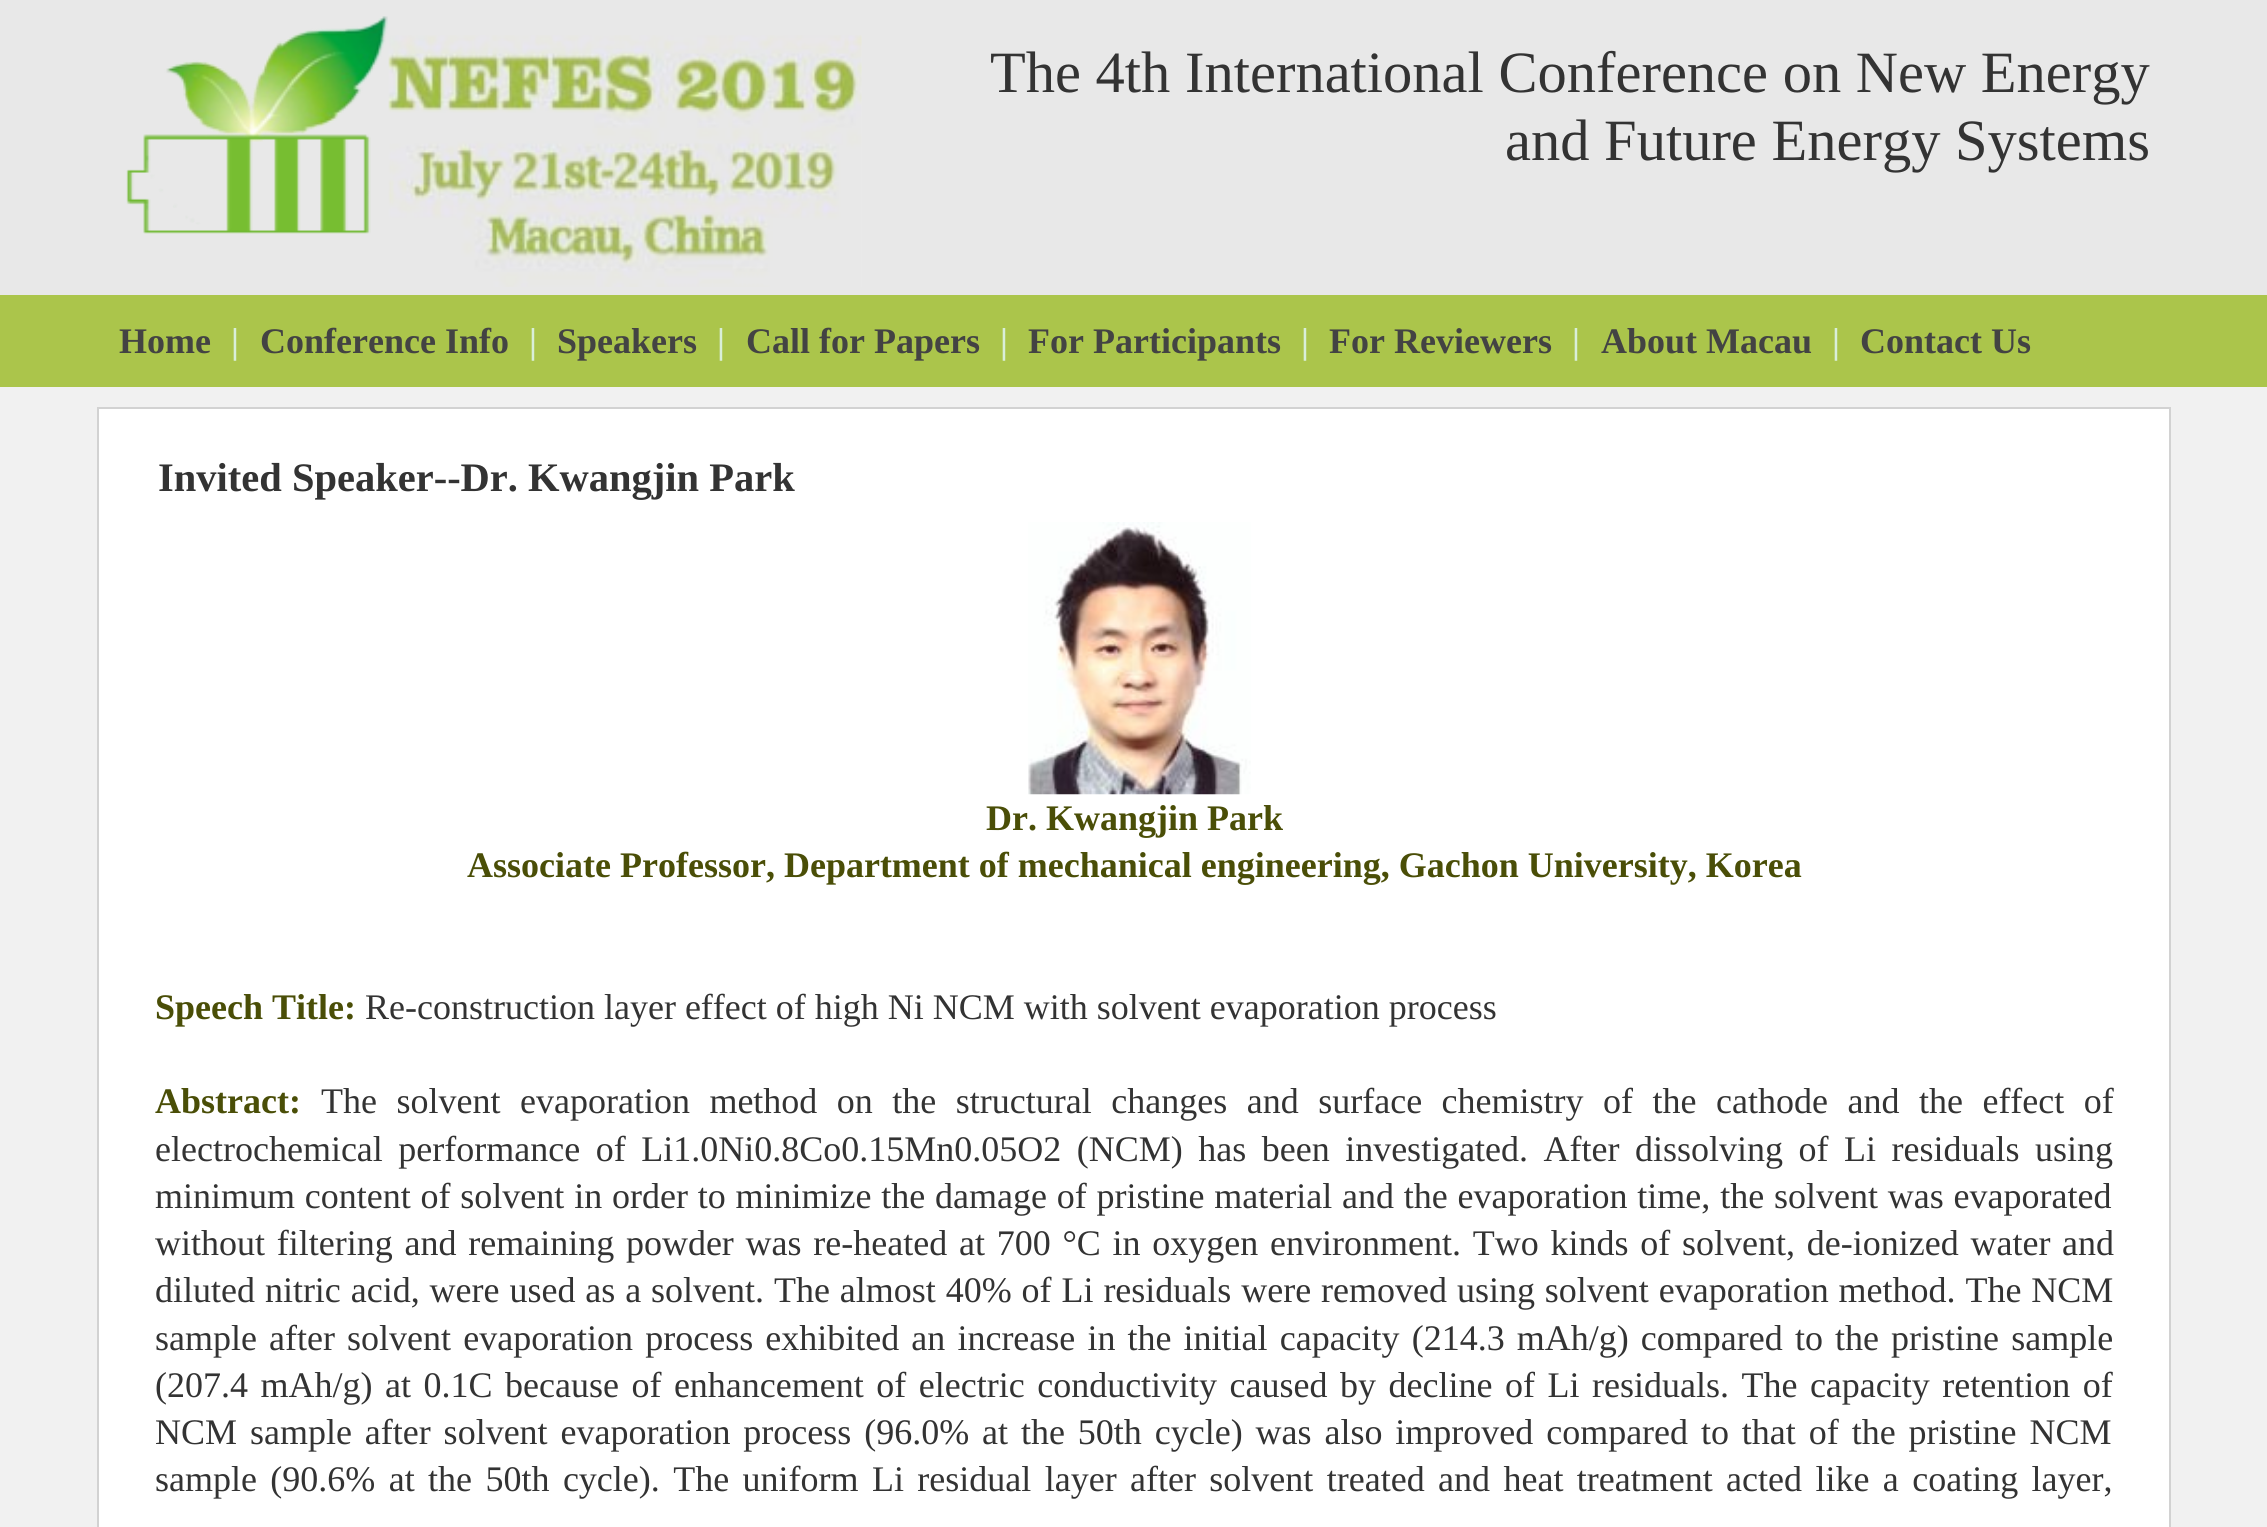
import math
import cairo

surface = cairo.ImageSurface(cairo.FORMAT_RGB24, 2267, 1527)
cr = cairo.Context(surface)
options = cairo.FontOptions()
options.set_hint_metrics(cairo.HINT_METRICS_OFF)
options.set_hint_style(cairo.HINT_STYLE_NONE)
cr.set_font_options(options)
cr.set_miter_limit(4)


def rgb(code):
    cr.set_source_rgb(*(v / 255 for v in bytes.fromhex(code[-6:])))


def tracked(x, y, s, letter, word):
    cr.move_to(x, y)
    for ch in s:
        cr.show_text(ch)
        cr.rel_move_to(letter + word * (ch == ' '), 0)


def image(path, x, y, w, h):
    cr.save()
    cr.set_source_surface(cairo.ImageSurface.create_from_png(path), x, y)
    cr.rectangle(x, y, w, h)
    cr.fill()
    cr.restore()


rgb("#f1f1f1")
cr.paint()
rgb("#e8e8e8")
cr.rectangle(0, 0, 2267, 295)
cr.fill()
image("img/1.png", 126, 16, 262, 218)
image("img/2.png", 388, 35, 474, 252)
rgb("#abc54b")
cr.rectangle(0, 295, 2267, 92)
cr.fill()
rgb("#ffffff")
cr.rectangle(98, 408, 2072, 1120)
cr.fill_preserve()
rgb("#d2d2d2")
cr.stroke()
image("img/3.png", 1028, 522, 223, 273)
cr.select_font_face("Liberation Serif")
cr.set_font_size(58.5)
rgb("#333333")
cr.move_to(990, 92)
cr.show_text("The 4th International Conference on New Energy")
cr.move_to(1505, 160)
cr.show_text("and Future Energy Systems")
cr.select_font_face("Liberation Serif", cairo.FONT_SLANT_NORMAL, cairo.FONT_WEIGHT_BOLD)
cr.set_font_size(36)
rgb("#434343")
cr.move_to(119, 353)
cr.show_text("Home")
rgb("#d9efd9")
cr.move_to(231, 353)
cr.show_text("|")
rgb("#434343")
cr.move_to(260, 353)
cr.show_text("Conference Info")
rgb("#d9efd9")
cr.move_to(529, 353)
cr.show_text("|")
rgb("#434343")
cr.move_to(557, 353)
cr.show_text("Speakers")
rgb("#d9efd9")
cr.move_to(717, 353)
cr.show_text("|")
rgb("#434343")
cr.move_to(746, 353)
cr.show_text("Call for Papers")
rgb("#d9efd9")
cr.move_to(1000, 353)
cr.show_text("|")
rgb("#434343")
cr.move_to(1028, 353)
cr.show_text("For Participants")
rgb("#d9efd9")
cr.move_to(1301, 353)
cr.show_text("|")
rgb("#434343")
cr.move_to(1329, 353)
cr.show_text("For Reviewers")
rgb("#d9efd9")
cr.move_to(1572, 353)
cr.show_text("|")
rgb("#434343")
cr.move_to(1601, 353)
cr.show_text("About Macau")
rgb("#d9efd9")
cr.move_to(1832, 353)
cr.show_text("|")
rgb("#434343")
cr.move_to(1860, 353)
cr.show_text("Contact Us")
cr.set_font_size(40.5)
rgb("#333333")
cr.move_to(158, 491)
cr.show_text("Invited Speaker--Dr. Kwangjin Park")
cr.set_font_size(36)
rgb("#4a4e07")
for x, y, s in [
    (986, 830, "Dr. Kwangjin Park"),
    (467, 877, "Associate Professor, Department of mechanical engineering, Gachon University, Korea"),
    (155, 1019, "Speech Title:"),
]:
    cr.move_to(x, y)
    cr.show_text(s)
cr.select_font_face("Liberation Serif")
rgb("#333333")
cr.move_to(365, 1019)
cr.show_text("Re-construction layer effect of high Ni NCM with solvent evaporation process")
cr.select_font_face("Liberation Serif", cairo.FONT_SLANT_NORMAL, cairo.FONT_WEIGHT_BOLD)
rgb("#4a4e07")
cr.move_to(155, 1113)
cr.show_text("Abstract:")
cr.select_font_face("Liberation Serif")
rgb("#333333")
tracked(321, 1113, "The solvent evaporation method on the structural changes and surface chemistry of the cathode and the effect of", 0, 10.5)
tracked(155, 1161, "electrochemical performance of Li1.0Ni0.8Co0.15Mn0.05O2 (NCM) has been investigated. After dissolving of Li residuals using", 0, 6.5)
tracked(155, 1208, "minimum content of solvent in order to minimize the damage of pristine material and the evaporation time, the solvent was evaporated", 0, 0.8)
tracked(155, 1255, "without filtering and remaining powder was re-heated at 700 °C in oxygen environment. Two kinds of solvent, de-ionized water and", 0, 2.75)
tracked(155, 1302, "diluted nitric acid, were used as a solvent. The almost 40% of Li residuals were removed using solvent evaporation method. The NCM", 0, 0.9)
tracked(155, 1350, "sample after solvent evaporation process exhibited an increase in the initial capacity (214.3 mAh/g) compared to the pristine sample", 0, 3.1)
tracked(155, 1397, "(207.4 mAh/g) at 0.1C because of enhancement of electric conductivity caused by decline of Li residuals. The capacity retention of", 0, 3.5)
tracked(155, 1444, "NCM sample after solvent evaporation process (96.0% at the 50th cycle) was also improved compared to that of the pristine NCM", 0, 3.9)
tracked(155, 1491, "sample (90.6% at the 50th cycle). The uniform Li residual layer after solvent treated and heat treatment acted like a coating layer,", 0, 4.4)
surface.write_to_png("page.png")
